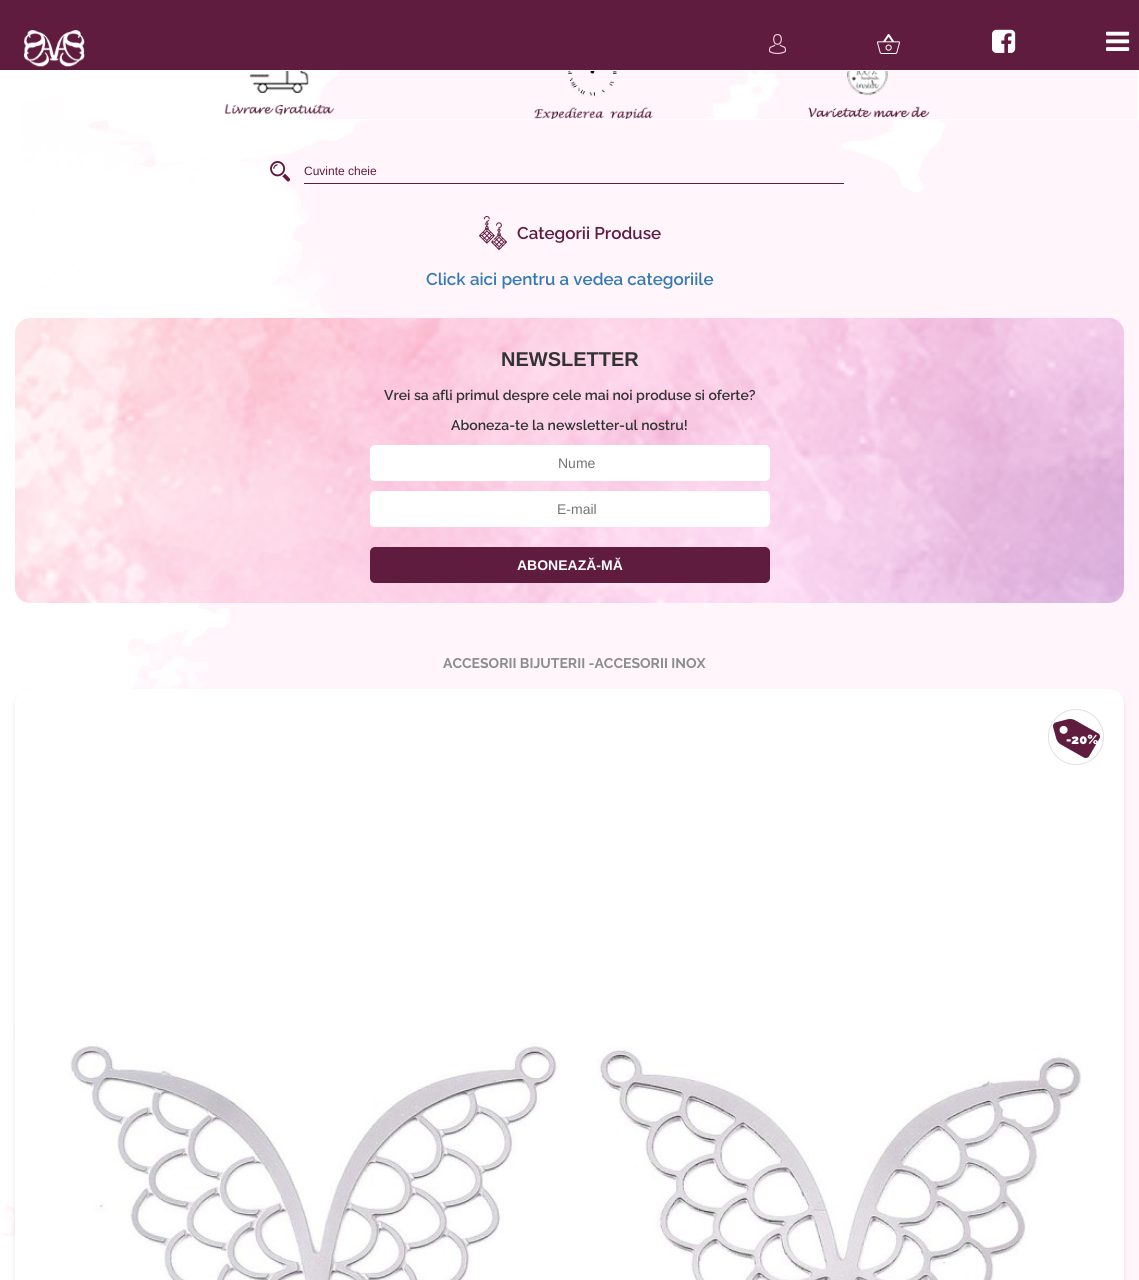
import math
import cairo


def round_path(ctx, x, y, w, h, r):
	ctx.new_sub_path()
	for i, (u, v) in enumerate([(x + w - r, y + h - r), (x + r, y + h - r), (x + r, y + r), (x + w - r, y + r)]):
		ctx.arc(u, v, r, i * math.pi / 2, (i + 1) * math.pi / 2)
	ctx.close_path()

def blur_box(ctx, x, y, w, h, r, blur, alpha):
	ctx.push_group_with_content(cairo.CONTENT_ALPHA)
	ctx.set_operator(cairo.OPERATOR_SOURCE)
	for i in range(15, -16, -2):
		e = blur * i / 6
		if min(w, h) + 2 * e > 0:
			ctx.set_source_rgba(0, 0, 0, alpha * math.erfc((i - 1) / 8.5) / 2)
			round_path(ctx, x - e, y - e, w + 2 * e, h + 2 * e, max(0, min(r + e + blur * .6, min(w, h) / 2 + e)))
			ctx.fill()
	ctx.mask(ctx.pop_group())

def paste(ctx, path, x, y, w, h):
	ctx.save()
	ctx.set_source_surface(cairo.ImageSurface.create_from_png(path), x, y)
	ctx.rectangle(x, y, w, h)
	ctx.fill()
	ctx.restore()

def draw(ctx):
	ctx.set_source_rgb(1, 1, 1)
	ctx.paint()
	paste(ctx, 'media/1.png', 1, 71, 1138, 1209)
	ctx.set_source_rgb(0.376, 0.11, 0.247)
	ctx.rectangle(0, 0, 1139, 70)
	ctx.fill()
	paste(ctx, 'media/2.png', 23, 30, 62, 37)
	paste(ctx, 'media/3.png', 769, 34, 17, 20)
	paste(ctx, 'media/4.png', 877, 34, 23, 20)
	paste(ctx, 'media/5.png', 992, 29, 24, 24)
	paste(ctx, 'media/6.png', 1106, 31, 24, 20)
	ctx.rectangle(0.5, 70.5, 1138, 49)
	ctx.set_source_rgb(1, 1, 1)
	ctx.set_line_width(1)
	ctx.stroke()
	paste(ctx, 'media/7.png', 65, 71, 879, 48)
	paste(ctx, 'media/8.png', 270, 161, 21, 21)
	ctx.set_source_rgb(0.376, 0.11, 0.247)
	ctx.rectangle(304, 183, 540, 1)
	ctx.fill()
	ctx.select_font_face('Liberation Sans')
	ctx.set_font_size(12)
	ctx.move_to(304, 175)
	ctx.show_text('Cuvinte cheie')
	paste(ctx, 'media/9.png', 479, 216, 28, 34)
	ctx.select_font_face('Raleway SemiBold')
	ctx.set_font_size(17)
	ctx.move_to(517, 239)
	ctx.show_text('Categorii Produse')
	ctx.set_source_rgb(0.2, 0.478, 0.718)
	ctx.move_to(426, 285)
	ctx.show_text('Click aici pentru a vedea categoriile')
	paste(ctx, 'media/10.png', 15, 318, 1109, 285)
	ctx.select_font_face('Liberation Sans', cairo.FONT_SLANT_NORMAL, cairo.FONT_WEIGHT_BOLD)
	ctx.set_font_size(20)
	ctx.set_source_rgb(0.2, 0.2, 0.2)
	ctx.move_to(501, 366)
	ctx.show_text('NEWSLETTER')
	ctx.select_font_face('Raleway SemiBold')
	ctx.set_font_size(14)
	ctx.move_to(384, 400)
	ctx.show_text('Vrei sa afli primul despre cele mai noi produse si oferte?')
	ctx.move_to(451, 430)
	ctx.show_text('Aboneza-te la newsletter-ul nostru!')
	ctx.set_source_rgb(1, 1, 1)
	round_path(ctx, 370, 445, 400, 36, 5)
	ctx.fill()
	ctx.select_font_face('Liberation Sans')
	ctx.set_source_rgb(0.459, 0.459, 0.459)
	ctx.move_to(558, 468)
	ctx.show_text('Nume')
	ctx.set_source_rgb(1, 1, 1)
	round_path(ctx, 370, 491, 400, 36, 5)
	ctx.fill()
	ctx.set_source_rgb(0.459, 0.459, 0.459)
	ctx.move_to(557, 514)
	ctx.show_text('E-mail')
	ctx.set_source_rgb(0.376, 0.11, 0.247)
	round_path(ctx, 370, 547, 400, 36, 5)
	ctx.fill()
	ctx.select_font_face('Liberation Sans', cairo.FONT_SLANT_NORMAL, cairo.FONT_WEIGHT_BOLD)
	ctx.set_source_rgb(1, 1, 1)
	ctx.move_to(517, 570)
	ctx.show_text('ABONEAZĂ-MĂ')
	ctx.select_font_face('Raleway', cairo.FONT_SLANT_NORMAL, cairo.FONT_WEIGHT_BOLD)
	ctx.set_source_rgb(0.553, 0.553, 0.553)
	ctx.move_to(443, 668)
	ctx.show_text('ACCESORII BIJUTERII -ACCESORII INOX')
	ctx.set_source_rgb(0, 0, 0)
	blur_box(ctx, 15, 692, 1109, 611, 15, 2.5, 0.1)
	ctx.set_source_rgb(1, 1, 1)
	round_path(ctx, 15, 689, 1109, 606, 15)
	ctx.fill()
	paste(ctx, 'media/11.png', 1048, 709, 56, 56)
	ctx.select_font_face('Raleway Black')
	ctx.set_font_size(13)
	ctx.move_to(1066, 744)
	ctx.show_text('-20%')
	paste(ctx, 'media/12.png', 69, 1042, 1013, 238)


surface = cairo.ImageSurface(cairo.FORMAT_RGB24, 1139, 1280)
ctx = cairo.Context(surface)
options = cairo.FontOptions()
options.set_hint_metrics(cairo.HINT_METRICS_OFF)
options.set_hint_style(cairo.HINT_STYLE_NONE)
ctx.set_font_options(options)
ctx.set_miter_limit(4)
draw(ctx)
surface.write_to_png('image.png')
